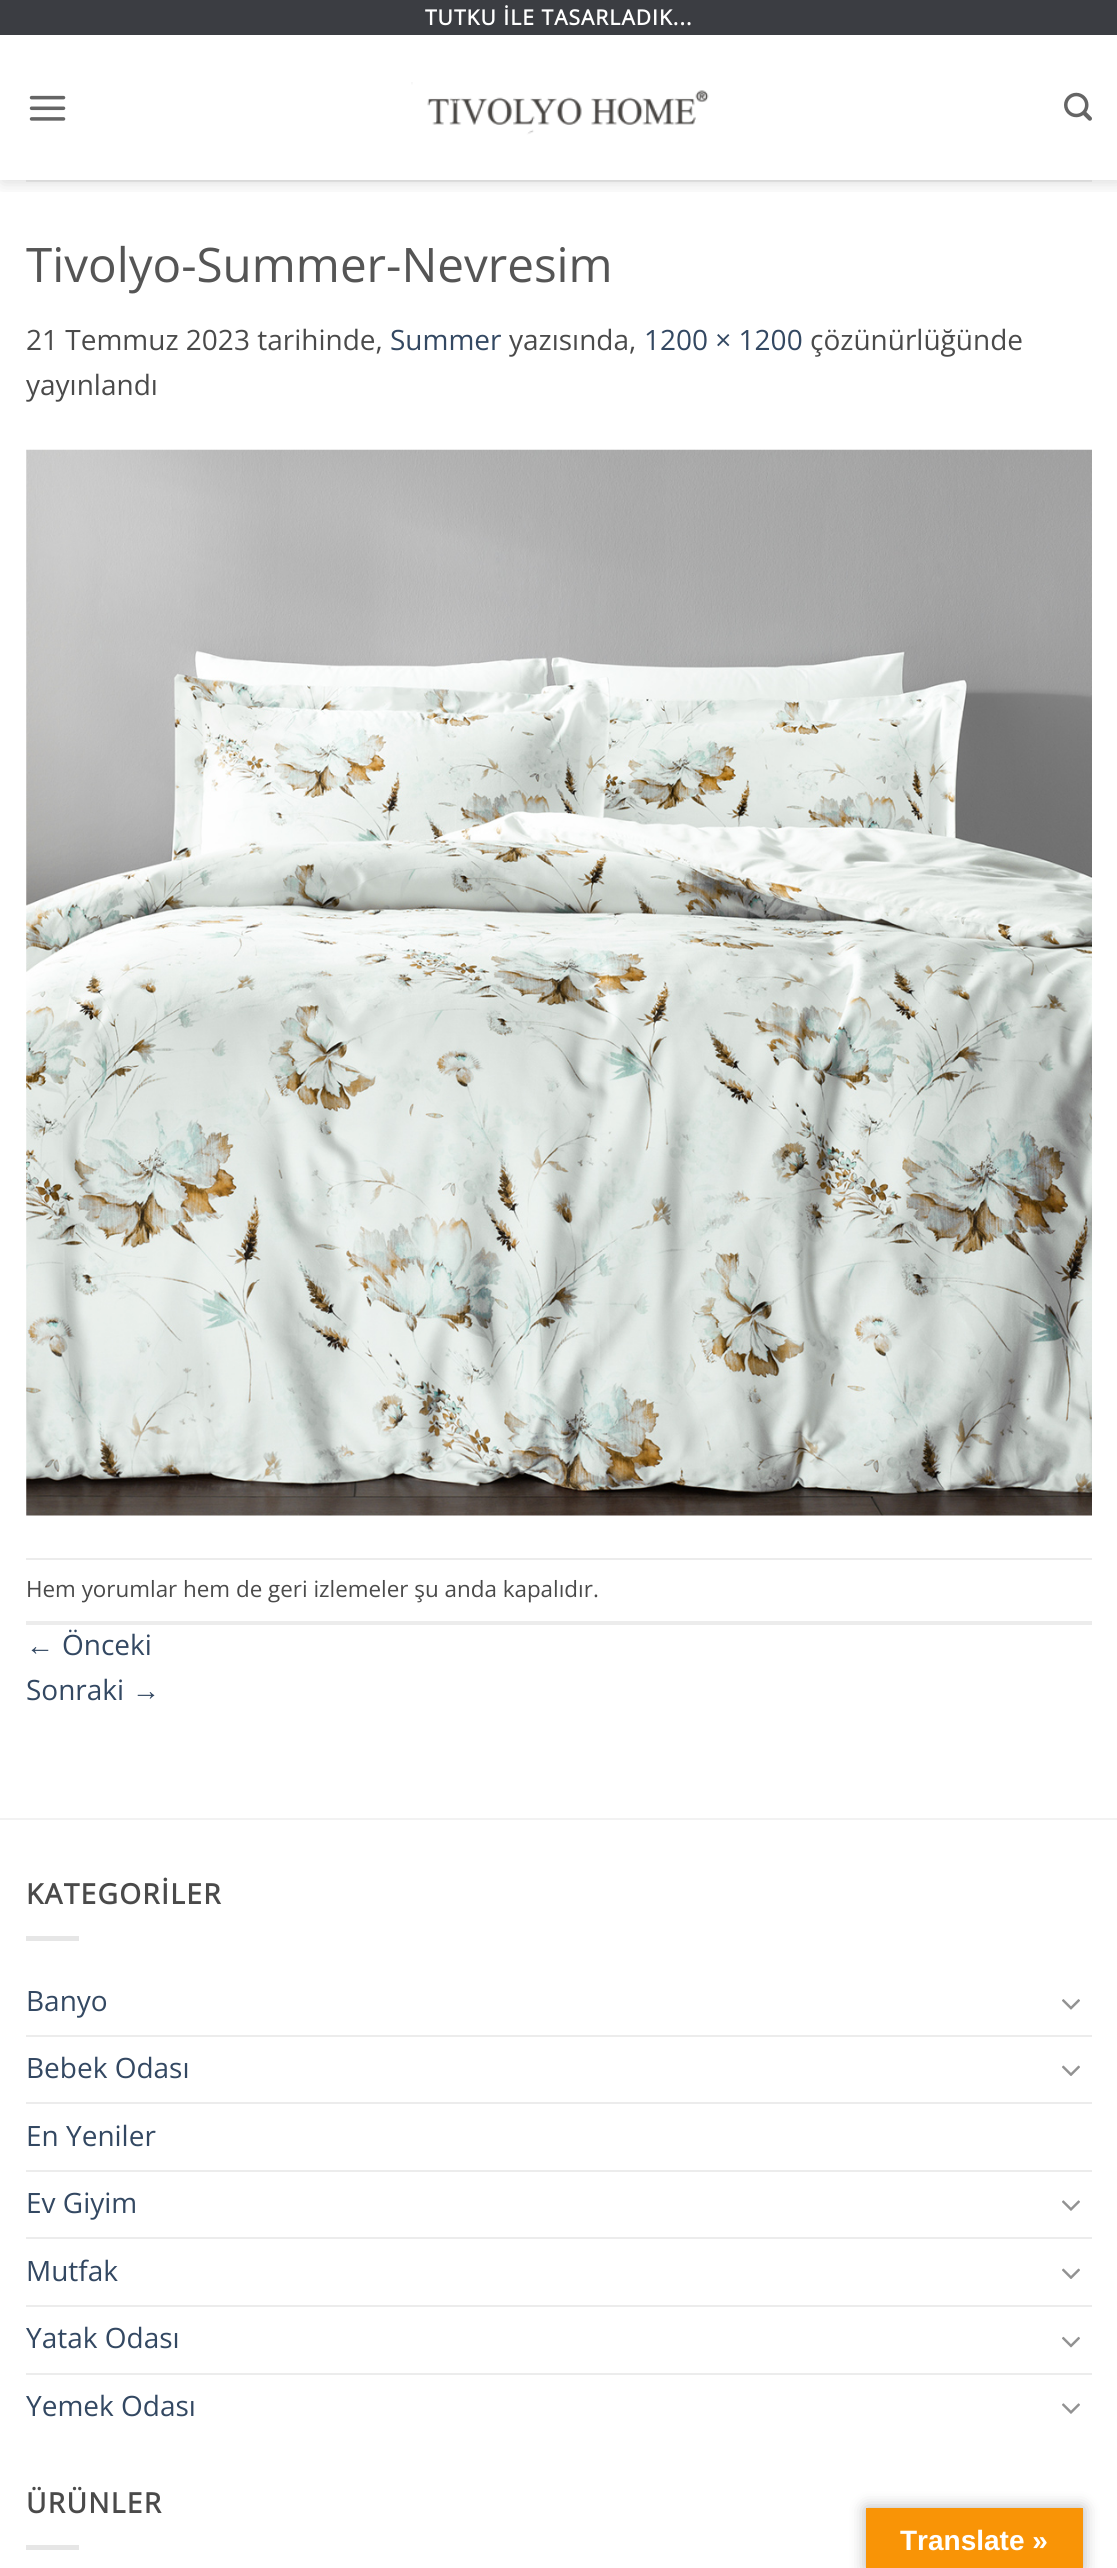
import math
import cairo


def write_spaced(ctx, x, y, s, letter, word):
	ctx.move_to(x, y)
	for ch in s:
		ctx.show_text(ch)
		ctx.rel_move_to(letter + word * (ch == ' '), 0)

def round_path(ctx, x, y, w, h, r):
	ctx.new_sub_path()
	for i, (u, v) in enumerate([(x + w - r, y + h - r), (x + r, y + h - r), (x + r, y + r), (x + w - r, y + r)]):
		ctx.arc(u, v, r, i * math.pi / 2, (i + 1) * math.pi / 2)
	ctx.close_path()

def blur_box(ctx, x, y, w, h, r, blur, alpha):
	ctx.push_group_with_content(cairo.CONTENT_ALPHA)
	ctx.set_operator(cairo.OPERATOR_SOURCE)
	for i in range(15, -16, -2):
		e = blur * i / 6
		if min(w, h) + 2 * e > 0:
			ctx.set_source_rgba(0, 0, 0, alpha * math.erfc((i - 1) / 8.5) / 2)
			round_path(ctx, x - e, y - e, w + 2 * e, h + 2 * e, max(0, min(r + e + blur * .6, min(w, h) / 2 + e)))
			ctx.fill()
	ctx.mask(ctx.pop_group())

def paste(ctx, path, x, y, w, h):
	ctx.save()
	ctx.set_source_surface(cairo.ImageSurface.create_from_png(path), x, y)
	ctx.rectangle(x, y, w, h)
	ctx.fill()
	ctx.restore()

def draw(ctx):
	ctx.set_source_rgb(1, 1, 1)
	ctx.paint()
	ctx.save()
	ctx.rectangle(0, 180, 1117, 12)
	ctx.clip()
	ctx.set_source_rgb(0, 0, 0)
	blur_box(ctx, 2, 2, 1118, 180, 0, 9, 0.15)
	ctx.restore()
	ctx.set_source_rgb(0.231, 0.239, 0.259)
	ctx.rectangle(0, 0, 1117, 35)
	ctx.fill()
	ctx.select_font_face('Open Sans', cairo.FONT_SLANT_NORMAL, cairo.FONT_WEIGHT_BOLD)
	ctx.set_font_size(21)
	ctx.set_source_rgb(1, 1, 1)
	write_spaced(ctx, 425, 25, 'TUTKU İLE TASARLADIK...', 1.05, 0)
	paste(ctx, 'media/1.png', 29, 95, 37, 26)
	paste(ctx, 'media/2.png', 411, 82, 298, 53)
	paste(ctx, 'media/3.png', 1064, 92, 28, 29)
	ctx.set_source_rgba(0.29, 0.29, 0.29, 0.1)
	ctx.rectangle(26, 180, 1066, 2)
	ctx.fill()
	ctx.select_font_face('Open Sans')
	ctx.set_font_size(47.6)
	ctx.set_source_rgb(0.333, 0.333, 0.333)
	ctx.move_to(26, 282)
	ctx.show_text('Tivolyo-Summer-Nevresim')
	ctx.set_font_size(28)
	ctx.set_source_rgb(0.29, 0.29, 0.29)
	ctx.move_to(26, 350)
	ctx.show_text('21 Temmuz 2023 tarihinde,')
	ctx.set_source_rgb(0.2, 0.282, 0.384)
	ctx.move_to(390, 350)
	ctx.show_text('Summer')
	ctx.set_source_rgb(0.29, 0.29, 0.29)
	ctx.move_to(509, 350)
	ctx.show_text('yazısında,')
	ctx.set_source_rgb(0.2, 0.282, 0.384)
	ctx.move_to(644, 350)
	ctx.show_text('1200 × 1200')
	ctx.set_source_rgb(0.29, 0.29, 0.29)
	ctx.move_to(810, 350)
	ctx.show_text('çözünürlüğünde')
	ctx.move_to(26, 395)
	ctx.show_text('yayınlandı')
	paste(ctx, 'media/4.png', 26, 449, 1066, 1067)
	ctx.set_source_rgb(0.925, 0.925, 0.925)
	ctx.rectangle(26, 1558, 1066, 2)
	ctx.fill()
	ctx.rectangle(26, 1621, 1066, 4)
	ctx.fill()
	ctx.set_font_size(22.4)
	ctx.set_source_rgb(0.29, 0.29, 0.29)
	ctx.move_to(26, 1597)
	ctx.show_text('Hem yorumlar hem de geri izlemeler şu anda kapalıdır.')
	ctx.select_font_face('Liberation Sans')
	ctx.set_font_size(28)
	ctx.set_source_rgb(0.2, 0.282, 0.384)
	ctx.move_to(26, 1655)
	ctx.show_text('←')
	ctx.select_font_face('Open Sans')
	ctx.move_to(62, 1655)
	ctx.show_text('Önceki')
	ctx.move_to(26, 1700)
	ctx.show_text('Sonraki')
	ctx.select_font_face('Liberation Sans')
	ctx.move_to(132, 1700)
	ctx.show_text('→')
	ctx.set_source_rgb(0.949, 0.949, 0.949)
	ctx.rectangle(0, 1818, 1117, 2)
	ctx.fill()
	ctx.select_font_face('Open Sans', cairo.FONT_SLANT_NORMAL, cairo.FONT_WEIGHT_BOLD)
	ctx.set_source_rgb(0.29, 0.29, 0.29)
	write_spaced(ctx, 26, 1904, 'KATEGORİLER', 1.4, 0)
	ctx.set_source_rgb(0.902, 0.902, 0.902)
	ctx.rectangle(26, 1936, 53, 5)
	ctx.fill()
	ctx.select_font_face('Open Sans')
	ctx.set_source_rgb(0.2, 0.282, 0.384)
	ctx.move_to(26, 2011)
	ctx.show_text('Banyo')
	paste(ctx, 'media/5.png', 1062, 1999, 18, 11)
	ctx.set_source_rgb(0.925, 0.925, 0.925)
	ctx.rectangle(26, 2035, 1066, 2)
	ctx.fill()
	ctx.set_source_rgb(0.2, 0.282, 0.384)
	ctx.move_to(26, 2078)
	ctx.show_text('Bebek Odası')
	paste(ctx, 'media/6.png', 1062, 2065, 18, 11)
	ctx.set_source_rgb(0.925, 0.925, 0.925)
	ctx.rectangle(26, 2102, 1066, 2)
	ctx.fill()
	ctx.set_source_rgb(0.2, 0.282, 0.384)
	ctx.move_to(26, 2146)
	ctx.show_text('En Yeniler')
	ctx.set_source_rgb(0.925, 0.925, 0.925)
	ctx.rectangle(26, 2170, 1066, 2)
	ctx.fill()
	ctx.set_source_rgb(0.2, 0.282, 0.384)
	ctx.move_to(26, 2213)
	ctx.show_text('Ev Giyim')
	paste(ctx, 'media/7.png', 1062, 2200, 18, 11)
	ctx.set_source_rgb(0.925, 0.925, 0.925)
	ctx.rectangle(26, 2237, 1066, 2)
	ctx.fill()
	ctx.set_source_rgb(0.2, 0.282, 0.384)
	ctx.move_to(26, 2281)
	ctx.show_text('Mutfak')
	paste(ctx, 'media/6.png', 1062, 2268, 18, 11)
	ctx.set_source_rgb(0.925, 0.925, 0.925)
	ctx.rectangle(26, 2305, 1066, 2)
	ctx.fill()
	ctx.set_source_rgb(0.2, 0.282, 0.384)
	ctx.move_to(26, 2348)
	ctx.show_text('Yatak Odası')
	paste(ctx, 'media/8.png', 1062, 2336, 18, 12)
	ctx.set_source_rgb(0.925, 0.925, 0.925)
	ctx.rectangle(26, 2373, 1066, 2)
	ctx.fill()
	ctx.set_source_rgb(0.2, 0.282, 0.384)
	ctx.move_to(26, 2416)
	ctx.show_text('Yemek Odası')
	paste(ctx, 'media/7.png', 1062, 2403, 18, 11)
	ctx.select_font_face('Open Sans', cairo.FONT_SLANT_NORMAL, cairo.FONT_WEIGHT_BOLD)
	ctx.set_source_rgb(0.29, 0.29, 0.29)
	write_spaced(ctx, 26, 2513, 'ÜRÜNLER', 1.4, 0)
	ctx.set_source_rgb(0.902, 0.902, 0.902)
	ctx.rectangle(26, 2545, 53, 5)
	ctx.fill()
	ctx.set_source_rgb(0, 0, 0)
	blur_box(ctx, 866, 2508, 217, 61, 0, 8, 0.3)
	ctx.set_source_rgb(0.973, 0.58, 0.024)
	ctx.rectangle(866, 2508, 217, 60)
	ctx.fill()
	ctx.select_font_face('Liberation Sans', cairo.FONT_SLANT_NORMAL, cairo.FONT_WEIGHT_BOLD)
	ctx.set_source_rgb(1, 1, 1)
	ctx.move_to(900, 2550)
	ctx.show_text('Translate »')


surface = cairo.ImageSurface(cairo.FORMAT_RGB24, 1117, 2568)
ctx = cairo.Context(surface)
options = cairo.FontOptions()
options.set_hint_metrics(cairo.HINT_METRICS_OFF)
options.set_hint_style(cairo.HINT_STYLE_NONE)
ctx.set_font_options(options)
ctx.set_miter_limit(4)
draw(ctx)
surface.write_to_png('image.png')
